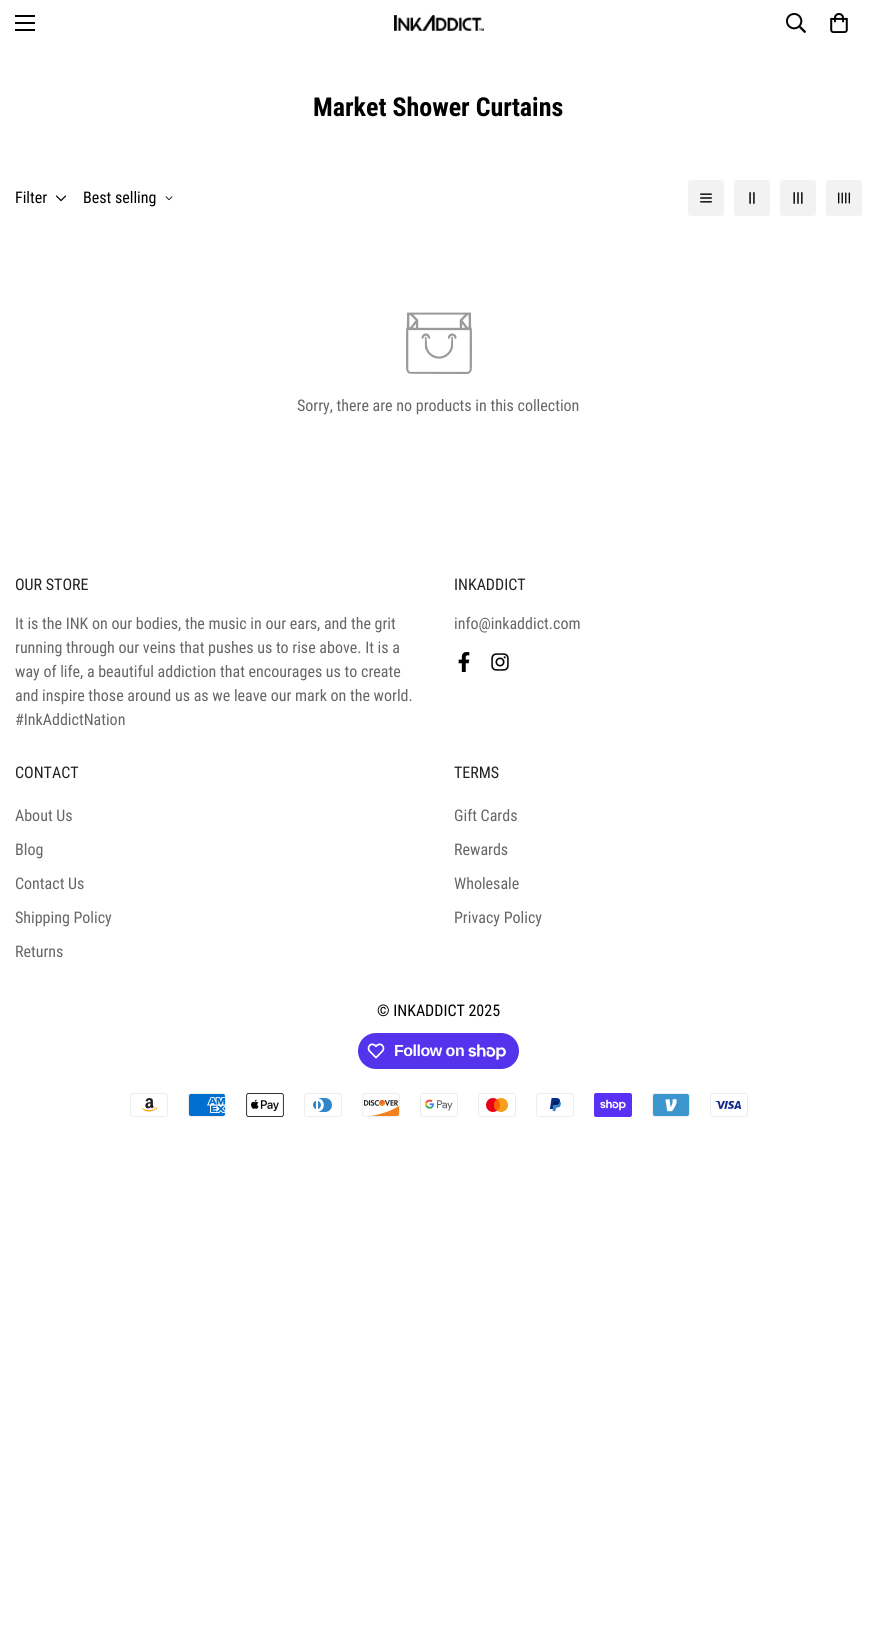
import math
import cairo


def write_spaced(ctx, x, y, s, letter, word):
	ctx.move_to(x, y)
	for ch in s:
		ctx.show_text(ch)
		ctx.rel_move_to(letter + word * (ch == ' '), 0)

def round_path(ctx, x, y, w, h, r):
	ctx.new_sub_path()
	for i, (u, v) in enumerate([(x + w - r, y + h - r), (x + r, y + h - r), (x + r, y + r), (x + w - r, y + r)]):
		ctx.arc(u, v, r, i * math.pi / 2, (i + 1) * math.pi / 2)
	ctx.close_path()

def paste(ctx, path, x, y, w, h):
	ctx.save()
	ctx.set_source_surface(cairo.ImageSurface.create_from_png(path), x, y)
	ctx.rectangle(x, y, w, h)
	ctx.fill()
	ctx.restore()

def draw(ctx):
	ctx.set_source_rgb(1, 1, 1)
	ctx.paint()
	ctx.set_source_rgb(0, 0, 0)
	ctx.rectangle(15, 22, 20, 2)
	ctx.rectangle(15, 15, 20, 2)
	ctx.rectangle(15, 29, 20, 2)
	ctx.fill()
	paste(ctx, 'media/1.png', 394, 15, 90, 16)
	paste(ctx, 'media/2.png', 786, 13, 20, 20)
	paste(ctx, 'media/3.png', 830, 13, 18, 20)
	ctx.select_font_face('Roboto Condensed', cairo.FONT_SLANT_NORMAL, cairo.FONT_WEIGHT_BOLD)
	ctx.set_font_size(26)
	ctx.move_to(313, 116)
	ctx.show_text('Market Shower Curtains')
	ctx.select_font_face('Roboto Condensed')
	ctx.set_font_size(16)
	ctx.move_to(15, 203)
	ctx.show_text('Filter')
	paste(ctx, 'media/4.png', 55, 195, 12, 7)
	ctx.move_to(83, 203)
	ctx.show_text('Best selling')
	paste(ctx, 'media/5.png', 165, 196, 8, 5)
	ctx.set_source_rgb(0.949, 0.949, 0.949)
	round_path(ctx, 688, 180, 36, 36, 3)
	ctx.fill()
	paste(ctx, 'media/6.png', 700, 193, 12, 10)
	round_path(ctx, 734, 180, 36, 36, 3)
	ctx.fill()
	paste(ctx, 'media/7.png', 749, 192, 6, 12)
	round_path(ctx, 780, 180, 36, 36, 3)
	ctx.fill()
	paste(ctx, 'media/8.png', 793, 192, 10, 12)
	round_path(ctx, 826, 180, 36, 36, 3)
	ctx.fill()
	paste(ctx, 'media/9.png', 838, 192, 12, 12)
	paste(ctx, 'media/10.png', 406, 312, 66, 62)
	ctx.set_source_rgb(0.4, 0.4, 0.4)
	ctx.move_to(297, 411)
	ctx.show_text('Sorry, there are no products in this collection')
	ctx.set_source_rgb(0.133, 0.133, 0.133)
	ctx.move_to(15, 590)
	ctx.show_text('OUR STORE')
	ctx.set_source_rgb(0.4, 0.4, 0.4)
	for x, y, s in [
		(15, 629, 'It is the INK on our bodies, the music in our ears, and the grit'),
		(15, 653, 'running through our veins that pushes us to rise above. It is a'),
		(15, 677, 'way of life, a beautiful addiction that encourages us to create'),
		(15, 701, 'and inspire those around us as we leave our mark on the world.'),
		(15, 725, '#InkAddictNation'),
	]:
		ctx.move_to(x, y)
		ctx.show_text(s)
	ctx.set_source_rgb(0.133, 0.133, 0.133)
	ctx.move_to(454, 590)
	ctx.show_text('INKADDICT')
	ctx.set_source_rgb(0.4, 0.4, 0.4)
	ctx.move_to(454, 629)
	ctx.show_text('info@inkaddict.com')
	paste(ctx, 'media/11.png', 458, 652, 12, 20)
	paste(ctx, 'media/12.png', 491, 653, 18, 18)
	ctx.set_source_rgb(0.133, 0.133, 0.133)
	ctx.move_to(15, 778)
	ctx.show_text('CONTACT')
	ctx.set_source_rgb(0.4, 0.4, 0.4)
	for x, y, s in [
		(15, 821, 'About Us'),
		(15, 855, 'Blog'),
		(15, 889, 'Contact Us'),
		(15, 923, 'Shipping Policy'),
		(15, 957, 'Returns'),
	]:
		ctx.move_to(x, y)
		ctx.show_text(s)
	ctx.set_source_rgb(0.133, 0.133, 0.133)
	ctx.move_to(454, 778)
	ctx.show_text('TERMS')
	ctx.set_source_rgb(0.4, 0.4, 0.4)
	for x, y, s in [
		(454, 821, 'Gift Cards'),
		(454, 855, 'Rewards'),
		(454, 889, 'Wholesale'),
		(454, 923, 'Privacy Policy'),
	]:
		ctx.move_to(x, y)
		ctx.show_text(s)
	ctx.set_source_rgb(0, 0, 0)
	ctx.move_to(377, 1016)
	ctx.show_text('© INKADDICT 2025')
	ctx.set_source_rgb(0.329, 0.2, 0.922)
	round_path(ctx, 358, 1033, 161, 36, 18)
	ctx.fill()
	paste(ctx, 'media/13.png', 367, 1043, 18, 16)
	ctx.select_font_face('Liberation Sans', cairo.FONT_SLANT_NORMAL, cairo.FONT_WEIGHT_BOLD)
	ctx.set_source_rgb(1, 1, 1)
	write_spaced(ctx, 394, 1056, 'Follow on', -0.5, 0)
	paste(ctx, 'media/14.png', 468, 1044, 38, 16)
	paste(ctx, 'media/15.png', 130, 1093, 38, 24)
	paste(ctx, 'media/16.png', 188, 1093, 38, 24)
	paste(ctx, 'media/17.png', 246, 1093, 38, 24)
	paste(ctx, 'media/18.png', 304, 1093, 38, 24)
	paste(ctx, 'media/19.png', 362, 1093, 38, 24)
	paste(ctx, 'media/20.png', 420, 1093, 38, 24)
	paste(ctx, 'media/21.png', 478, 1093, 38, 24)
	paste(ctx, 'media/22.png', 536, 1093, 38, 24)
	paste(ctx, 'media/23.png', 594, 1093, 38, 24)
	paste(ctx, 'media/24.png', 652, 1093, 38, 24)
	paste(ctx, 'media/25.png', 710, 1093, 38, 24)


surface = cairo.ImageSurface(cairo.FORMAT_RGB24, 877, 1649)
ctx = cairo.Context(surface)
options = cairo.FontOptions()
options.set_hint_metrics(cairo.HINT_METRICS_OFF)
options.set_hint_style(cairo.HINT_STYLE_NONE)
ctx.set_font_options(options)
ctx.set_miter_limit(4)
draw(ctx)
surface.write_to_png('image.png')
